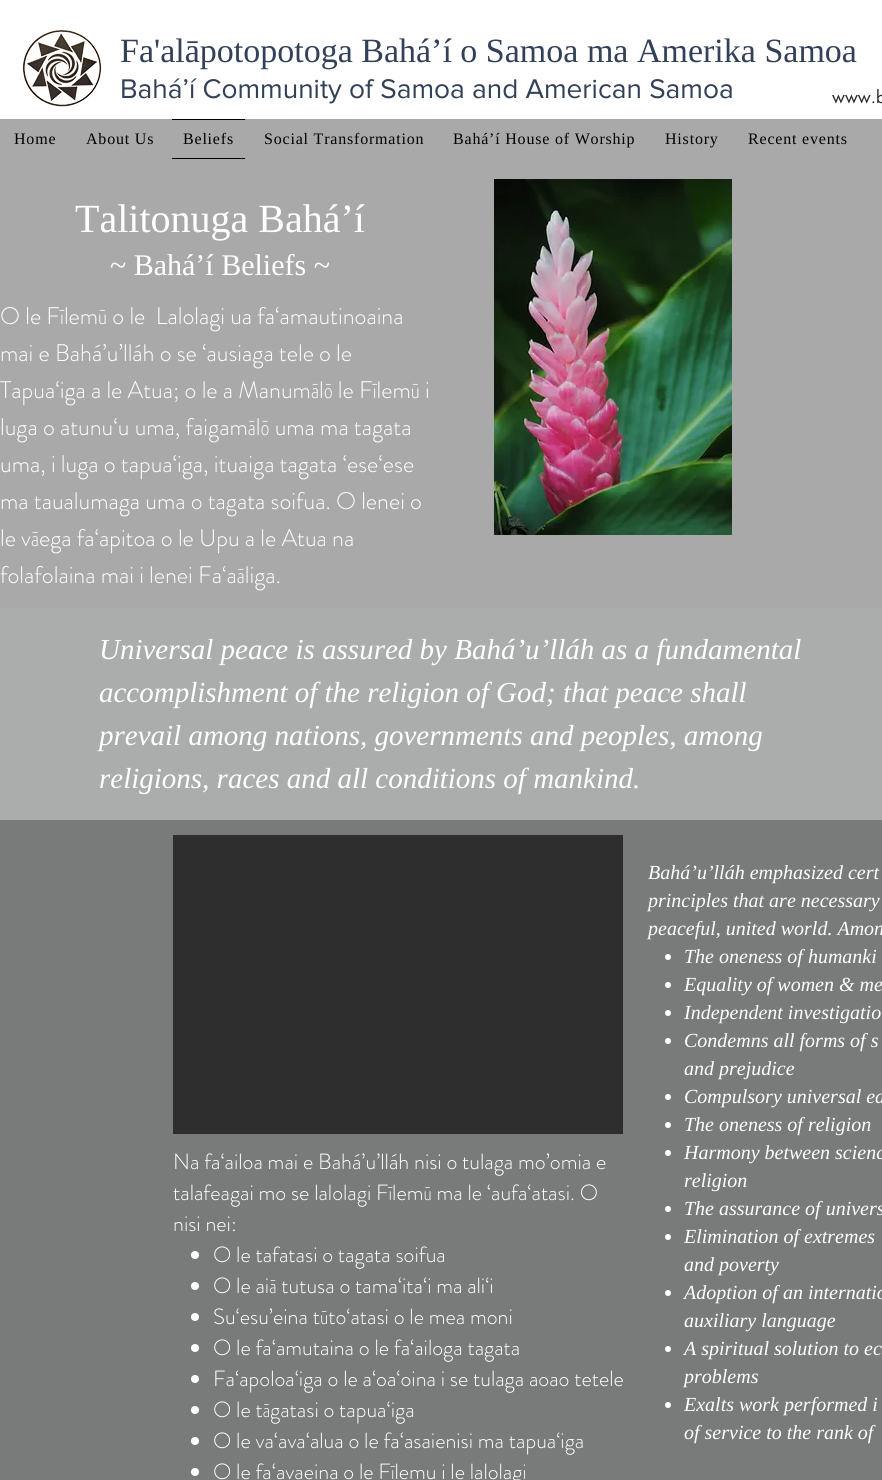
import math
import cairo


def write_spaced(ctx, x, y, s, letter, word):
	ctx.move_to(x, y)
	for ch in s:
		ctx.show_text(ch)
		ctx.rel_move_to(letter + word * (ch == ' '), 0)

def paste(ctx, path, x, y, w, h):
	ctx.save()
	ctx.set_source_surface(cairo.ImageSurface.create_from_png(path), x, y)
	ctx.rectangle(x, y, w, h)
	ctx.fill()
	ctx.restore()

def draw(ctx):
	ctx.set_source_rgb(1, 1, 1)
	ctx.paint()
	paste(ctx, 'media/1.png', 22, 30, 80, 77)
	ctx.select_font_face('Liberation Serif')
	ctx.set_font_size(34)
	ctx.set_source_rgb(0.196, 0.255, 0.345)
	ctx.move_to(120, 62)
	ctx.show_text('Fa\'alāpotopotoga Bahá’í o Samoa ma Amerika Samoa')
	ctx.select_font_face('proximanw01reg')
	ctx.set_font_size(28)
	ctx.move_to(120, 98)
	ctx.show_text('Bahá’í Community of Samoa and American Samoa')
	ctx.select_font_face('futura')
	ctx.set_font_size(17)
	ctx.set_source_rgb(0.157, 0.149, 0.149)
	ctx.move_to(832, 103)
	ctx.show_text('www.b')
	ctx.set_source_rgb(0.663, 0.663, 0.667)
	ctx.rectangle(0, 119, 882, 489)
	ctx.fill()
	ctx.select_font_face('Liberation Serif')
	ctx.set_font_size(16)
	ctx.set_source_rgb(0, 0, 0)
	write_spaced(ctx, 14, 144, 'Home', 0.8, 0)
	write_spaced(ctx, 86, 144, 'About Us', 0.8, 0)
	ctx.rectangle(172, 119, 73, 1)
	ctx.fill()
	ctx.rectangle(172, 158, 73, 1)
	ctx.fill()
	for x, y, s in [
		(183, 144, 'Beliefs'),
		(264, 144, 'Social Transformation'),
		(453, 144, 'Bahá’í House of Worship'),
		(665, 144, 'History'),
		(748, 144, 'Recent events'),
	]:
		write_spaced(ctx, x, y, s, 0.8, 0)
	ctx.set_font_size(40)
	ctx.set_source_rgb(1, 1, 1)
	ctx.move_to(75, 232)
	ctx.show_text('Talitonuga Bahá’í')
	ctx.set_font_size(30)
	ctx.move_to(110, 275)
	ctx.show_text('~ Bahá’í Beliefs ~')
	paste(ctx, 'media/2.png', 494, 179, 238, 356)
	ctx.select_font_face('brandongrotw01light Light')
	ctx.set_font_size(24)
	for x, y, s in [
		(0, 324, 'O le Fīlemū o le  Lalolagi ua fa‘amautinoaina'),
		(0, 361, 'mai e Bahá’u’lláh o se ‘ausiaga tele o le'),
		(0, 398, 'Tapua‘iga a le Atua; o le a Manumālō le Fīlemū i'),
		(0, 435, 'luga o atunu‘u uma, faigamālō uma ma tagata'),
		(0, 472, 'uma, i luga o tapua‘iga, ituaiga tagata ‘ese‘ese'),
		(0, 509, 'ma taualumaga uma o tagata soifua. O lenei o'),
		(0, 546, 'le vāega fa‘apitoa o le Upu a le Atua na'),
		(0, 583, 'folafolaina mai i lenei Fa‘aāliga.'),
	]:
		ctx.move_to(x, y)
		ctx.show_text(s)
	ctx.set_source_rgb(0.671, 0.675, 0.675)
	ctx.rectangle(0, 608, 882, 212)
	ctx.fill()
	ctx.select_font_face('Liberation Serif', cairo.FONT_SLANT_ITALIC)
	ctx.set_font_size(29)
	ctx.set_source_rgb(1, 1, 1)
	for x, y, s in [
		(99, 659, 'Universal peace is assured by Bahá’u’lláh as a fundamental'),
		(99, 702, 'accomplishment of the religion of God; that peace shall'),
		(99, 745, 'prevail among nations, governments and peoples, among'),
		(99, 788, 'religions, races and all conditions of mankind.'),
	]:
		ctx.move_to(x, y)
		ctx.show_text(s)
	ctx.set_source_rgb(0.475, 0.478, 0.478)
	ctx.rectangle(0, 820, 882, 660)
	ctx.fill()
	ctx.set_source_rgb(0.184, 0.18, 0.18)
	ctx.rectangle(173, 835, 450, 299)
	ctx.fill()
	ctx.set_font_size(20)
	ctx.set_source_rgb(1, 1, 1)
	for x, y, s in [
		(648, 879, 'Bahá’u’lláh emphasized cert'),
		(648, 907, 'principles that are necessary'),
		(648, 935, 'peaceful, united world. Amon'),
	]:
		ctx.move_to(x, y)
		ctx.show_text(s)
	ctx.new_path()
	ctx.arc(668, 957, 3, 0, 2 * math.pi)
	ctx.fill()
	ctx.move_to(684, 963)
	ctx.show_text('The oneness of humanki')
	ctx.new_path()
	ctx.arc(668, 985, 3, 0, 2 * math.pi)
	ctx.fill()
	ctx.move_to(684, 991)
	ctx.show_text('Equality of women & me')
	ctx.new_path()
	ctx.arc(668, 1013, 3, 0, 2 * math.pi)
	ctx.fill()
	ctx.move_to(684, 1019)
	ctx.show_text('Independent investigatio')
	ctx.new_path()
	ctx.arc(668, 1041, 3, 0, 2 * math.pi)
	ctx.fill()
	ctx.move_to(684, 1047)
	ctx.show_text('Condemns all forms of s')
	ctx.move_to(684, 1075)
	ctx.show_text('and prejudice')
	ctx.new_path()
	ctx.arc(668, 1097, 3, 0, 2 * math.pi)
	ctx.fill()
	ctx.move_to(684, 1103)
	ctx.show_text('Compulsory universal ed')
	ctx.new_path()
	ctx.arc(668, 1125, 3, 0, 2 * math.pi)
	ctx.fill()
	ctx.move_to(684, 1131)
	ctx.show_text('The oneness of religion')
	ctx.new_path()
	ctx.arc(668, 1153, 3, 0, 2 * math.pi)
	ctx.fill()
	ctx.move_to(684, 1159)
	ctx.show_text('Harmony between scienc')
	ctx.move_to(684, 1187)
	ctx.show_text('religion')
	ctx.new_path()
	ctx.arc(668, 1209, 3, 0, 2 * math.pi)
	ctx.fill()
	ctx.move_to(684, 1215)
	ctx.show_text('The assurance of univers')
	ctx.new_path()
	ctx.arc(668, 1237, 3, 0, 2 * math.pi)
	ctx.fill()
	ctx.move_to(684, 1243)
	ctx.show_text('Elimination of extremes')
	ctx.move_to(684, 1271)
	ctx.show_text('and poverty')
	ctx.new_path()
	ctx.arc(668, 1293, 3, 0, 2 * math.pi)
	ctx.fill()
	ctx.move_to(684, 1299)
	ctx.show_text('Adoption of an internatio')
	ctx.move_to(684, 1327)
	ctx.show_text('auxiliary language')
	ctx.new_path()
	ctx.arc(668, 1349, 3, 0, 2 * math.pi)
	ctx.fill()
	ctx.move_to(684, 1355)
	ctx.show_text('A spiritual solution to ec')
	ctx.move_to(684, 1383)
	ctx.show_text('problems')
	ctx.new_path()
	ctx.arc(668, 1405, 3, 0, 2 * math.pi)
	ctx.fill()
	ctx.move_to(684, 1411)
	ctx.show_text('Exalts work performed i')
	ctx.move_to(684, 1439)
	ctx.show_text('of service to the rank of')
	ctx.select_font_face('brandongrotw01light Light')
	ctx.set_font_size(22)
	for x, y, s in [
		(173, 1169, 'Na fa‘ailoa mai e Bahá’u’lláh nisi o tulaga mo’omia e'),
		(173, 1200, 'talafeagai mo se lalolagi Fīlemū ma le ‘aufa‘atasi. O'),
		(173, 1231, 'nisi nei:'),
	]:
		ctx.move_to(x, y)
		ctx.show_text(s)
	ctx.new_path()
	ctx.arc(195, 1255, 4, 0, 2 * math.pi)
	ctx.fill()
	ctx.move_to(213, 1262)
	ctx.show_text('O le tafatasi o tagata soifua')
	ctx.new_path()
	ctx.arc(195, 1286, 4, 0, 2 * math.pi)
	ctx.fill()
	ctx.move_to(213, 1293)
	ctx.show_text('O le aiā tutusa o tama‘ita‘i ma ali‘i')
	ctx.new_path()
	ctx.arc(195, 1317, 4, 0, 2 * math.pi)
	ctx.fill()
	ctx.move_to(213, 1324)
	ctx.show_text('Su‘esu’eina tūto‘atasi o le mea moni')
	ctx.new_path()
	ctx.arc(195, 1348, 4, 0, 2 * math.pi)
	ctx.fill()
	ctx.move_to(213, 1355)
	ctx.show_text('O le fa‘amutaina o le fa‘ailoga tagata')
	ctx.new_path()
	ctx.arc(195, 1379, 4, 0, 2 * math.pi)
	ctx.fill()
	ctx.move_to(213, 1386)
	ctx.show_text('Fa‘apoloa‘iga o le a‘oa‘oina i se tulaga aoao tetele')
	ctx.new_path()
	ctx.arc(195, 1410, 4, 0, 2 * math.pi)
	ctx.fill()
	ctx.move_to(213, 1417)
	ctx.show_text('O le tāgatasi o tapua‘iga')
	ctx.new_path()
	ctx.arc(195, 1441, 4, 0, 2 * math.pi)
	ctx.fill()
	ctx.move_to(213, 1448)
	ctx.show_text('O le va‘ava‘alua o le fa‘asaienisi ma tapua‘iga')
	ctx.new_path()
	ctx.arc(195, 1472, 4, 0, 2 * math.pi)
	ctx.fill()
	ctx.move_to(213, 1479)
	ctx.show_text('O le fa‘avaeina o le Fīlemu i le lalolagi')


surface = cairo.ImageSurface(cairo.FORMAT_RGB24, 882, 1480)
ctx = cairo.Context(surface)
options = cairo.FontOptions()
options.set_hint_metrics(cairo.HINT_METRICS_OFF)
options.set_hint_style(cairo.HINT_STYLE_NONE)
ctx.set_font_options(options)
ctx.set_miter_limit(4)
draw(ctx)
surface.write_to_png('image.png')
